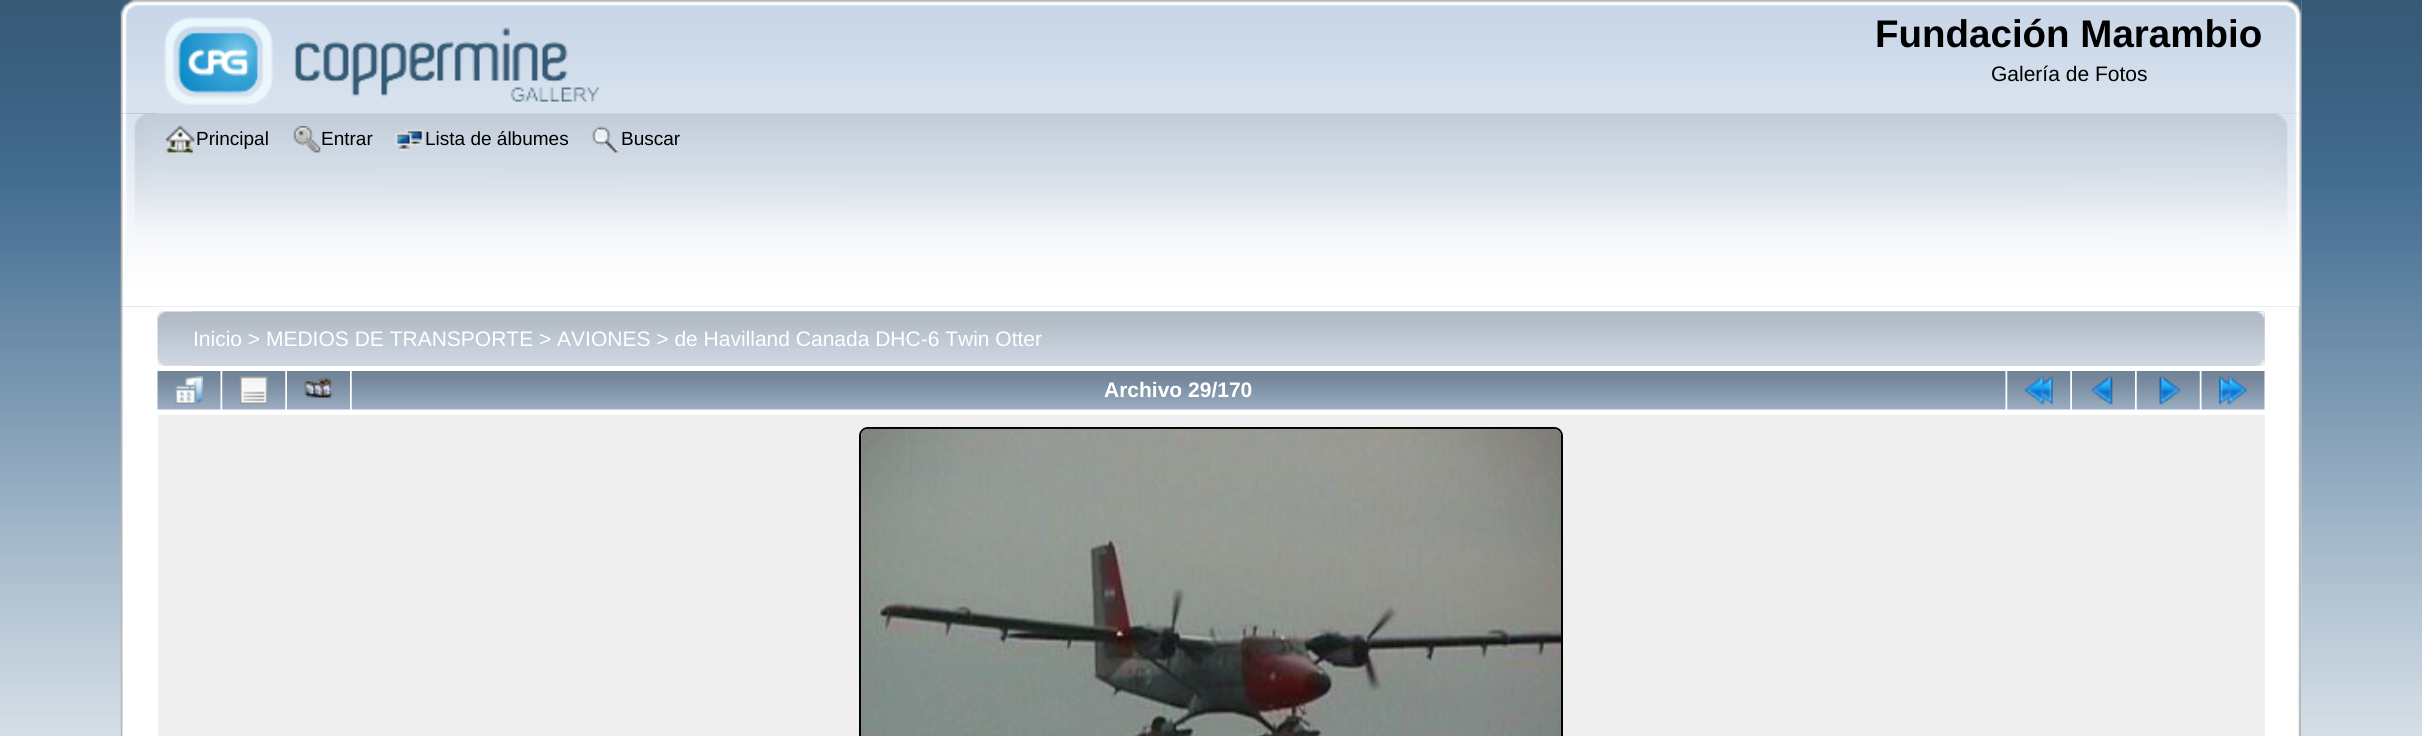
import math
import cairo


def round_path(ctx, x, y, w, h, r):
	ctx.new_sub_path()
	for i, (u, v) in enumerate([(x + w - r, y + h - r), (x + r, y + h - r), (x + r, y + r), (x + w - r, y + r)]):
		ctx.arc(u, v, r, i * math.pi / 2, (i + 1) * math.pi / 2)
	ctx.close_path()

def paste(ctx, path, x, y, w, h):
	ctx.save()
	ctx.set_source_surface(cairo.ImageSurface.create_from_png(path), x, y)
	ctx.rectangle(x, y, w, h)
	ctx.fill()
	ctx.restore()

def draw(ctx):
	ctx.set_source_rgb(1, 1, 1)
	ctx.paint()
	paste(ctx, 'media/1.png', 0, 0, 2422, 736)
	paste(ctx, 'media/2.png', 120, 0, 2182, 114)
	paste(ctx, 'media/3.png', 156, 0, 2146, 114)
	paste(ctx, 'media/4.png', 164, 17, 435, 88)
	ctx.select_font_face('Liberation Sans', cairo.FONT_SLANT_NORMAL, cairo.FONT_WEIGHT_BOLD)
	ctx.set_font_size(38.5)
	ctx.set_source_rgb(0, 0, 0)
	ctx.move_to(1875, 47)
	ctx.show_text('Fundación Marambio')
	ctx.select_font_face('Liberation Sans')
	ctx.set_font_size(21)
	ctx.move_to(1991, 81)
	ctx.show_text('Galería de Fotos')
	paste(ctx, 'media/5.png', 120, 113, 2182, 194)
	paste(ctx, 'media/6.png', 155, 113, 2147, 194)
	paste(ctx, 'media/7.png', 166, 126, 29, 28)
	ctx.set_font_size(19)
	ctx.move_to(196, 145)
	ctx.show_text('Principal')
	paste(ctx, 'media/8.png', 293, 126, 28, 27)
	ctx.move_to(321, 145)
	ctx.show_text('Entrar')
	paste(ctx, 'media/9.png', 395, 129, 29, 22)
	ctx.move_to(425, 145)
	ctx.show_text('Lista de álbumes')
	paste(ctx, 'media/10.png', 591, 126, 28, 27)
	ctx.move_to(621, 145)
	ctx.show_text('Buscar')
	paste(ctx, 'media/11.png', 120, 306, 2182, 430)
	paste(ctx, 'media/12.png', 2298, 306, 4, 430)
	paste(ctx, 'media/13.png', 157, 311, 2108, 55)
	paste(ctx, 'media/14.png', 192, 311, 2073, 55)
	ctx.set_font_size(21)
	ctx.set_source_rgb(1, 1, 1)
	ctx.move_to(193, 346)
	ctx.show_text('Inicio > MEDIOS DE TRANSPORTE > AVIONES > de Havilland Canada DHC-6 Twin Otter')
	paste(ctx, 'media/15.png', 157, 371, 64, 39)
	paste(ctx, 'media/16.png', 175, 376, 28, 29)
	paste(ctx, 'media/17.png', 222, 371, 64, 39)
	paste(ctx, 'media/18.png', 239, 376, 29, 29)
	paste(ctx, 'media/19.png', 287, 371, 63, 39)
	paste(ctx, 'media/20.png', 304, 377, 29, 22)
	paste(ctx, 'media/21.png', 351, 371, 1655, 39)
	ctx.select_font_face('Liberation Sans', cairo.FONT_SLANT_NORMAL, cairo.FONT_WEIGHT_BOLD)
	ctx.move_to(1104, 397)
	ctx.show_text('Archivo 29/170')
	paste(ctx, 'media/17.png', 2007, 371, 64, 39)
	paste(ctx, 'media/22.png', 2024, 376, 29, 29)
	paste(ctx, 'media/19.png', 2072, 371, 63, 39)
	paste(ctx, 'media/23.png', 2091, 376, 22, 29)
	paste(ctx, 'media/24.png', 2136, 371, 64, 39)
	paste(ctx, 'media/25.png', 2159, 376, 22, 29)
	paste(ctx, 'media/15.png', 2201, 371, 64, 39)
	paste(ctx, 'media/26.png', 2219, 376, 28, 29)
	ctx.set_source_rgb(0.937, 0.937, 0.937)
	ctx.rectangle(158, 415, 2107, 321)
	ctx.fill()
	round_path(ctx, 860, 428, 702, 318, 8)
	ctx.set_source_rgb(0, 0, 0)
	ctx.stroke()
	paste(ctx, 'media/27.png', 861, 428, 700, 308)


surface = cairo.ImageSurface(cairo.FORMAT_RGB24, 2422, 736)
ctx = cairo.Context(surface)
options = cairo.FontOptions()
options.set_hint_metrics(cairo.HINT_METRICS_OFF)
options.set_hint_style(cairo.HINT_STYLE_NONE)
ctx.set_font_options(options)
ctx.set_miter_limit(4)
draw(ctx)
surface.write_to_png('image.png')
